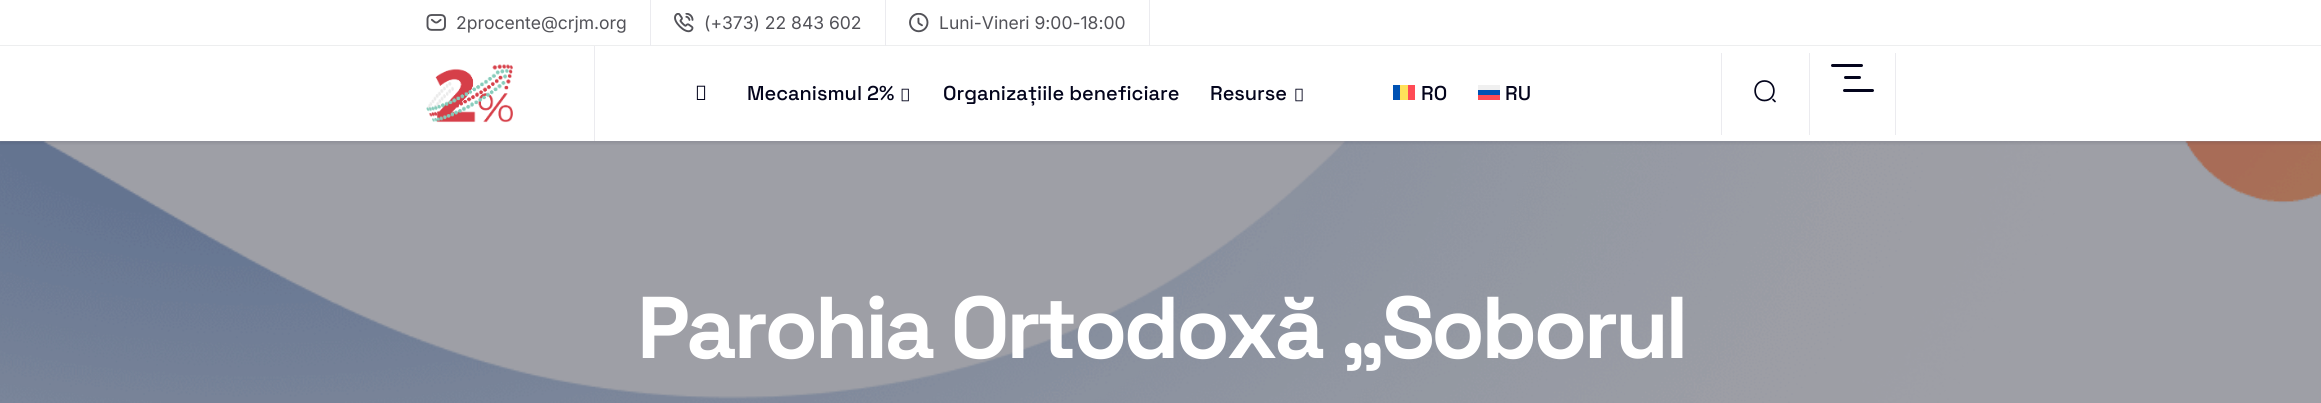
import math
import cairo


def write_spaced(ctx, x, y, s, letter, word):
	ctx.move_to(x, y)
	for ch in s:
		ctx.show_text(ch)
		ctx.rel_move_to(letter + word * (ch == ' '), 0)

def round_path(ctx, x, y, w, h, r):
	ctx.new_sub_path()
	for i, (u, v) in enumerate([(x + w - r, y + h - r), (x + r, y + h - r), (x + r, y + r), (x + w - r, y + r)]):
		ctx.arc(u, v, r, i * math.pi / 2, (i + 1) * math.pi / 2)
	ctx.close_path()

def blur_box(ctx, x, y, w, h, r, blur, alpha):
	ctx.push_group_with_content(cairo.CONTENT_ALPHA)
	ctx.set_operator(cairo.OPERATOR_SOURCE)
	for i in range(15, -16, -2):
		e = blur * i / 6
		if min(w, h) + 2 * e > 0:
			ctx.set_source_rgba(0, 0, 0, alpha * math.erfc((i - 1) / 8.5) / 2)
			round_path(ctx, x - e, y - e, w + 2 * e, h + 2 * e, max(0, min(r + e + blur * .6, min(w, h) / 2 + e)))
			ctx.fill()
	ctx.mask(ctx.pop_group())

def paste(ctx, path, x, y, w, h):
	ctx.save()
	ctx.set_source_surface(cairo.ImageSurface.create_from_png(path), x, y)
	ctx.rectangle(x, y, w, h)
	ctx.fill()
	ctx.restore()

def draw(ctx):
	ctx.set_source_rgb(1, 1, 1)
	ctx.paint()
	ctx.set_source_rgb(0.62, 0.624, 0.651)
	ctx.rectangle(0, 141, 2321, 262)
	ctx.fill()
	paste(ctx, 'media/8.png', 0, 141, 2321, 262)
	ctx.save()
	ctx.rectangle(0, 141, 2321, 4)
	ctx.clip()
	ctx.set_source_rgb(0.012, 0.016, 0.11)
	blur_box(ctx, 0, 1, 2321, 142, 0, 2, 0.12)
	ctx.restore()
	ctx.set_source_rgb(0.929, 0.933, 0.937)
	ctx.rectangle(0, 45, 2321, 1)
	ctx.fill()
	paste(ctx, 'media/1.png', 426, 14, 20, 17)
	ctx.select_font_face('Inter')
	ctx.set_font_size(17.5)
	ctx.set_source_rgb(0.322, 0.322, 0.345)
	ctx.move_to(456, 29)
	ctx.show_text('2procente@crjm.org')
	ctx.set_source_rgb(0.918, 0.918, 0.937)
	ctx.rectangle(650, 0, 1, 46)
	ctx.fill()
	paste(ctx, 'media/2.png', 674, 13, 20, 20)
	ctx.set_source_rgb(0.322, 0.322, 0.345)
	ctx.move_to(704, 29)
	ctx.show_text('(+373) 22 843 602')
	ctx.set_source_rgb(0.918, 0.918, 0.937)
	ctx.rectangle(885, 0, 1, 46)
	ctx.fill()
	paste(ctx, 'media/3.png', 909, 13, 20, 20)
	ctx.set_source_rgb(0.322, 0.322, 0.345)
	ctx.move_to(939, 29)
	ctx.show_text('Luni-Vineri 9:00-18:00')
	ctx.set_source_rgb(0.918, 0.918, 0.937)
	ctx.rectangle(1149, 0, 1, 46)
	ctx.fill()
	paste(ctx, 'media/4.png', 426, 64, 87, 59)
	ctx.rectangle(594, 46, 1, 95)
	ctx.fill()
	paste(ctx, 'media/5.png', 696, 85, 10, 15)
	ctx.select_font_face('Space Grotesk Medium')
	ctx.set_font_size(20)
	ctx.set_source_rgb(0.012, 0.016, 0.11)
	ctx.move_to(747, 100)
	ctx.show_text('Mecanismul 2%')
	paste(ctx, 'media/6.png', 901, 88, 8, 14)
	ctx.move_to(943, 100)
	ctx.show_text('Organizațiile beneficiare')
	ctx.move_to(1210, 100)
	ctx.show_text('Resurse')
	paste(ctx, 'media/7.png', 1295, 88, 8, 14)
	ctx.set_source_rgb(0, 0.322, 0.706)
	ctx.rectangle(1393, 85, 7, 15)
	ctx.fill()
	ctx.set_source_rgb(1, 0.882, 0.353)
	ctx.rectangle(1400, 85, 8, 15)
	ctx.fill()
	ctx.set_source_rgb(1, 0.294, 0.333)
	ctx.rectangle(1408, 85, 7, 15)
	ctx.fill()
	ctx.set_source_rgb(0.012, 0.016, 0.11)
	ctx.move_to(1421, 100)
	ctx.show_text('RO')
	ctx.set_source_rgb(0.941, 0.941, 0.941)
	ctx.rectangle(1478, 85, 22, 5)
	ctx.fill()
	ctx.set_source_rgb(0.012, 0.016, 0.11)
	ctx.move_to(1505, 100)
	ctx.show_text('RU')
	ctx.set_source_rgb(0, 0.322, 0.706)
	ctx.rectangle(1478, 90, 22, 5)
	ctx.fill()
	ctx.set_source_rgb(1, 0.294, 0.333)
	ctx.rectangle(1478, 95, 22, 5)
	ctx.fill()
	ctx.set_source_rgb(0.918, 0.918, 0.937)
	ctx.rectangle(1721, 53, 1, 82)
	ctx.fill()
	ctx.new_path()
	ctx.move_to(1764.5, 100.5)
	ctx.curve_to(1777, 100.5, 1777, 81, 1764.5, 81)
	ctx.curve_to(1752, 81, 1752, 100.5, 1764.5, 100.5)
	ctx.close_path()
	ctx.move_to(1775, 101.5)
	ctx.line_to(1773, 99.5)
	ctx.set_source_rgb(0.012, 0.016, 0.11)
	ctx.set_line_width(1.7)
	ctx.set_line_cap(cairo.LINE_CAP_ROUND)
	ctx.set_line_join(cairo.LINE_JOIN_ROUND)
	ctx.stroke()
	ctx.set_source_rgb(0.918, 0.918, 0.937)
	ctx.rectangle(1809, 53, 1, 82)
	ctx.fill()
	ctx.set_source_rgb(0.012, 0.016, 0.11)
	round_path(ctx, 1831, 64, 32, 3, 1.5)
	ctx.fill()
	round_path(ctx, 1844, 76, 17, 3, 1.5)
	ctx.fill()
	round_path(ctx, 1843, 89, 31, 3, 1.5)
	ctx.fill()
	ctx.set_source_rgb(0.918, 0.918, 0.937)
	ctx.rectangle(1895, 53, 1, 82)
	ctx.fill()
	ctx.select_font_face('Space Grotesk', cairo.FONT_SLANT_NORMAL, cairo.FONT_WEIGHT_BOLD)
	ctx.set_font_size(87.5)
	ctx.set_source_rgb(1, 1, 1)
	write_spaced(ctx, 637, 358, 'Parohia Ortodoxă „Soborul', -3.5, 0)


surface = cairo.ImageSurface(cairo.FORMAT_RGB24, 2321, 403)
ctx = cairo.Context(surface)
options = cairo.FontOptions()
options.set_hint_metrics(cairo.HINT_METRICS_OFF)
options.set_hint_style(cairo.HINT_STYLE_NONE)
ctx.set_font_options(options)
ctx.set_miter_limit(4)
draw(ctx)
surface.write_to_png('image.png')
